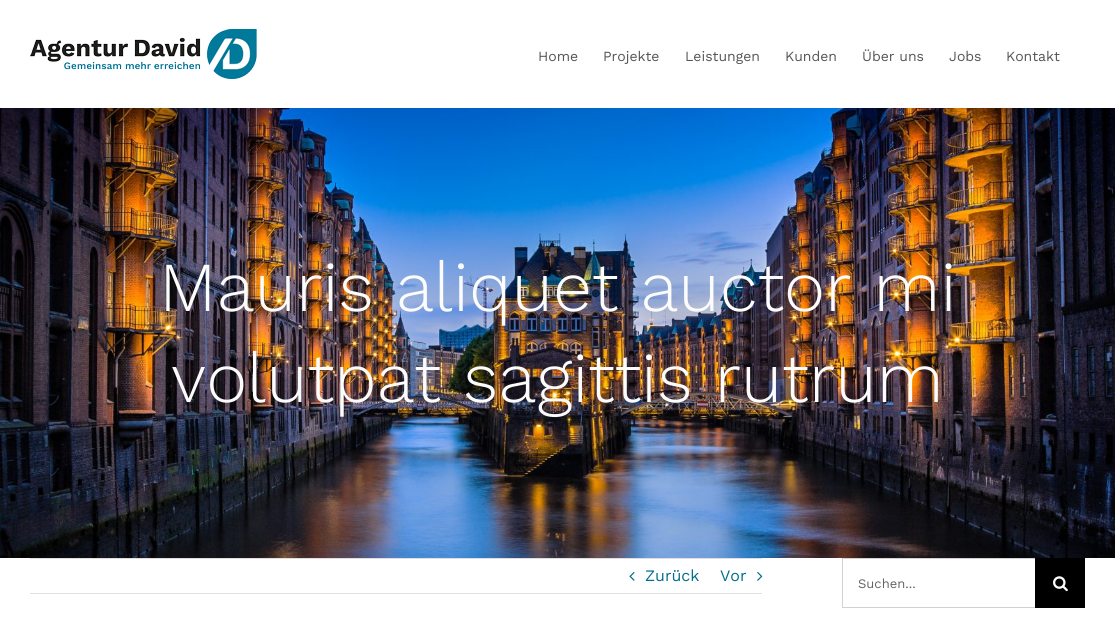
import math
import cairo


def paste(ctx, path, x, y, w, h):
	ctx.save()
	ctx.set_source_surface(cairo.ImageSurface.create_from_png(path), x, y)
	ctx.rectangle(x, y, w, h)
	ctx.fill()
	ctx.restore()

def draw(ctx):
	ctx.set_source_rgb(1, 1, 1)
	ctx.paint()
	paste(ctx, 'media/1.png', 30, 29, 227, 50)
	ctx.select_font_face('Work Sans')
	ctx.set_font_size(14)
	ctx.set_source_rgb(0.333, 0.333, 0.333)
	for x, y, s in [
		(538, 61, 'Home'),
		(603, 61, 'Projekte'),
		(685, 61, 'Leistungen'),
		(785, 61, 'Kunden'),
		(862, 61, 'Über uns'),
		(949, 61, 'Jobs'),
		(1006, 61, 'Kontakt'),
	]:
		ctx.move_to(x, y)
		ctx.show_text(s)
	paste(ctx, 'media/2.png', 0, 108, 1115, 450)
	ctx.select_font_face('Work Sans Light')
	ctx.set_font_size(70)
	ctx.set_source_rgb(0.988, 0.988, 0.988)
	ctx.move_to(159, 311)
	ctx.show_text('Mauris aliquet auctor mi')
	ctx.move_to(171, 402)
	ctx.show_text('volutpat sagittis rutrum')
	ctx.set_source_rgb(0.878, 0.871, 0.871)
	ctx.rectangle(30, 558, 732, 1)
	ctx.fill()
	ctx.rectangle(30, 593, 732, 1)
	ctx.fill()
	paste(ctx, 'media/3.png', 629, 572, 6, 9)
	ctx.select_font_face('Work Sans')
	ctx.set_font_size(16)
	ctx.set_source_rgb(0, 0.427, 0.545)
	ctx.move_to(645, 581)
	ctx.show_text('Zurück')
	ctx.move_to(720, 581)
	ctx.show_text('Vor')
	paste(ctx, 'media/4.png', 757, 572, 6, 9)
	ctx.set_source_rgb(0.824, 0.824, 0.824)
	ctx.rectangle(842, 558, 193, 1)
	ctx.rectangle(842, 607, 193, 1)
	ctx.rectangle(842, 558, 1, 50)
	ctx.fill()
	ctx.set_font_size(13)
	ctx.set_source_rgb(0.392, 0.392, 0.392)
	ctx.move_to(858, 588)
	ctx.show_text('Suchen...')
	ctx.set_source_rgb(0, 0, 0)
	ctx.rectangle(1035, 558, 50, 50)
	ctx.fill()
	paste(ctx, 'media/5.png', 1053, 576, 15, 16)


surface = cairo.ImageSurface(cairo.FORMAT_RGB24, 1115, 619)
ctx = cairo.Context(surface)
options = cairo.FontOptions()
options.set_hint_metrics(cairo.HINT_METRICS_OFF)
options.set_hint_style(cairo.HINT_STYLE_NONE)
ctx.set_font_options(options)
ctx.set_miter_limit(4)
draw(ctx)
surface.write_to_png('image.png')
